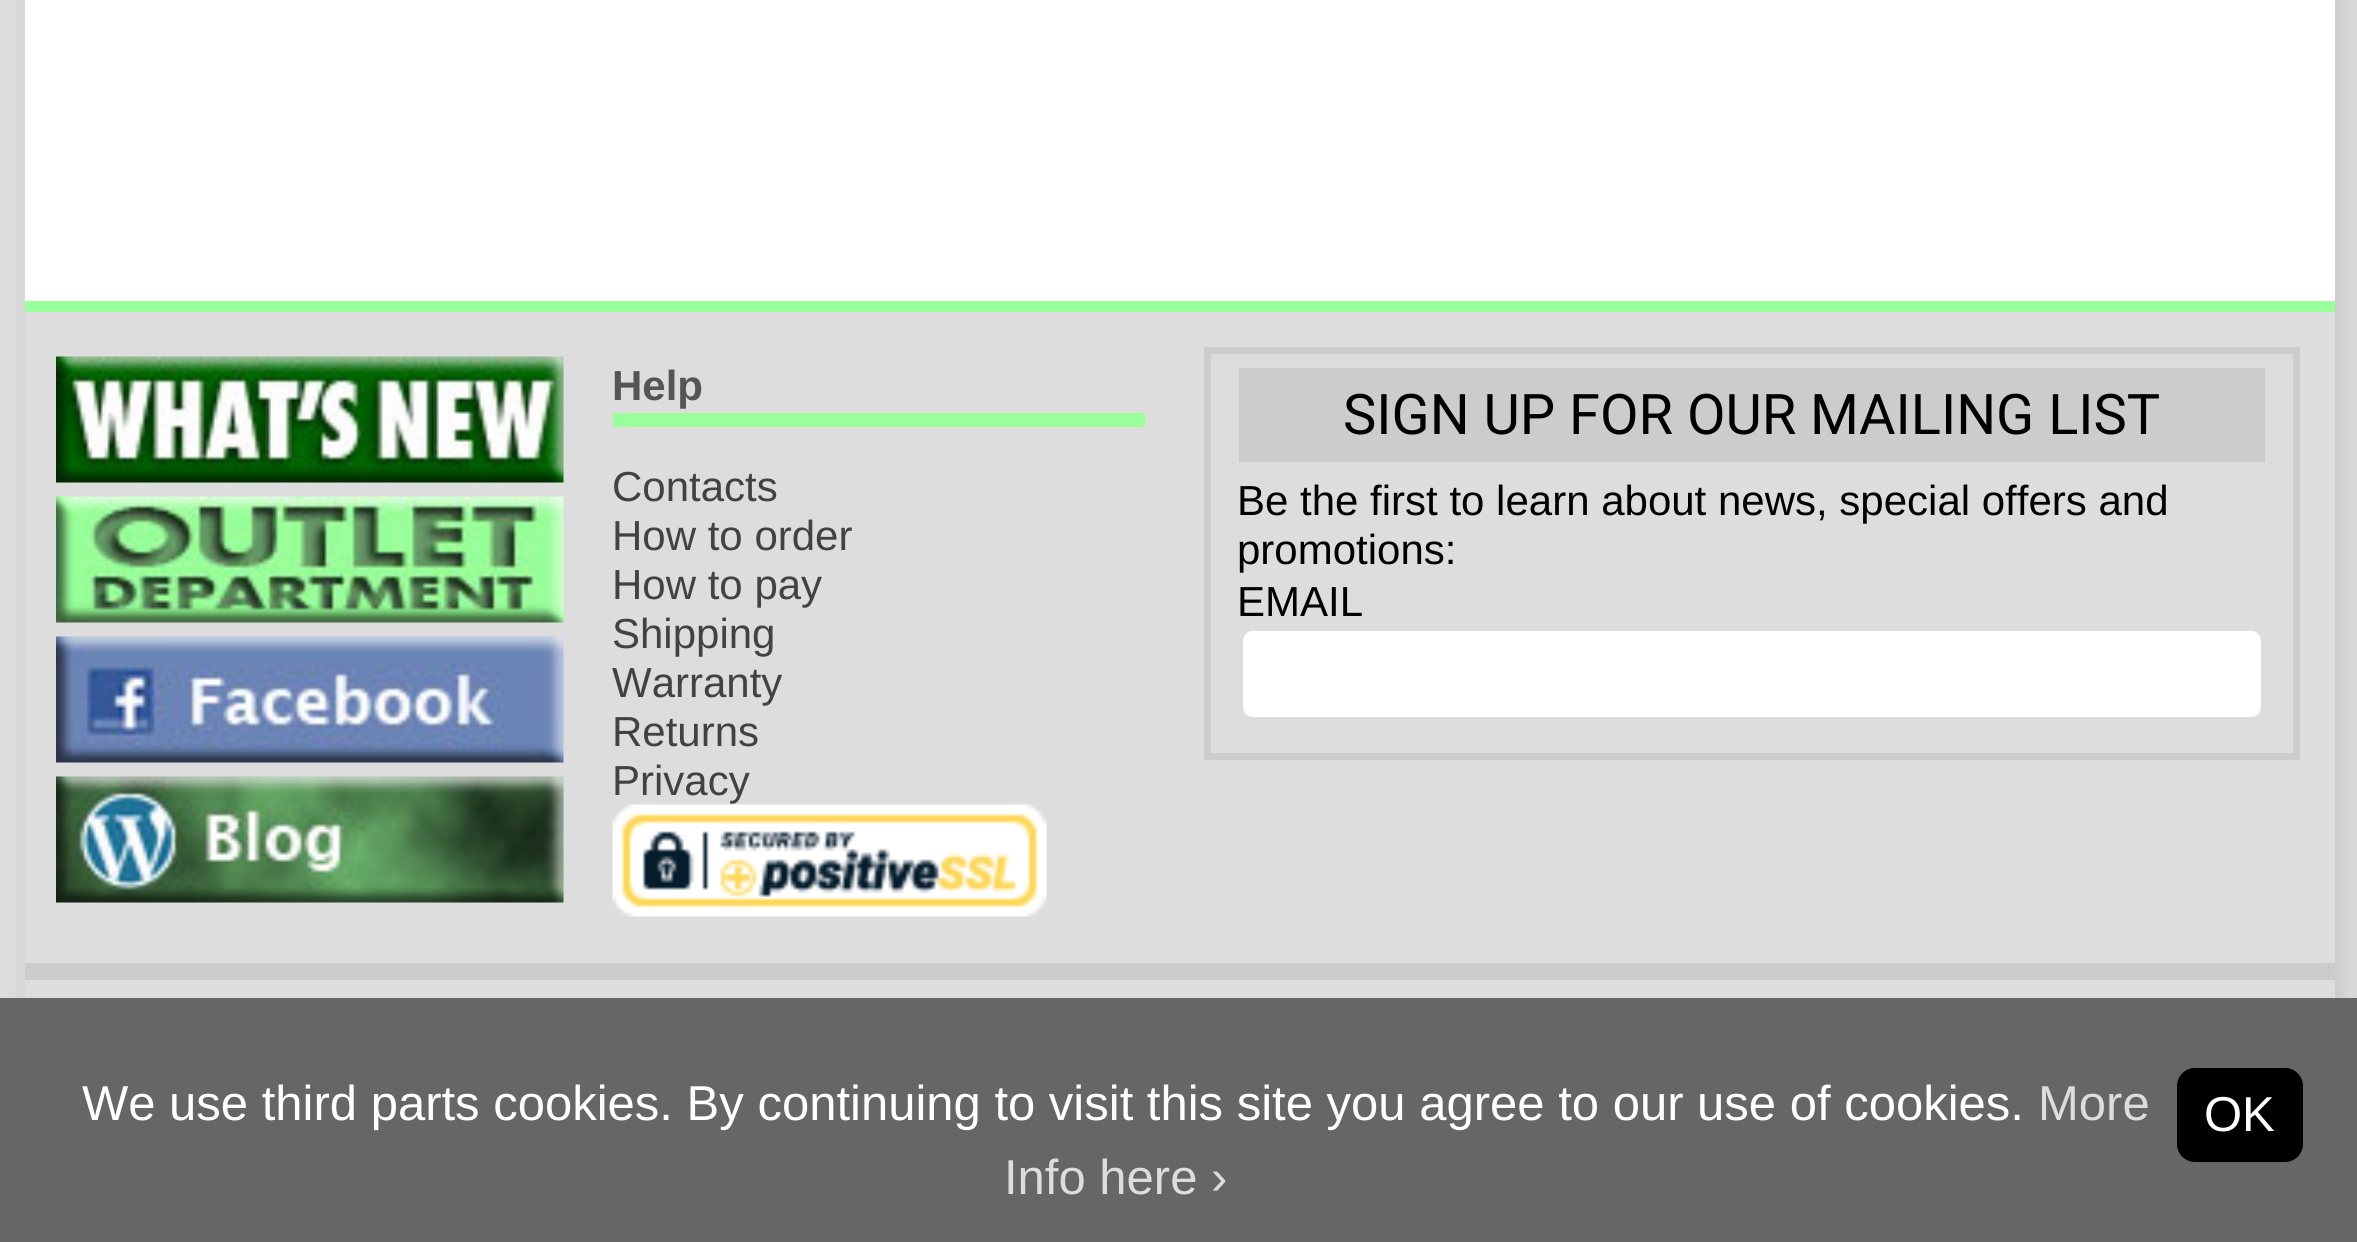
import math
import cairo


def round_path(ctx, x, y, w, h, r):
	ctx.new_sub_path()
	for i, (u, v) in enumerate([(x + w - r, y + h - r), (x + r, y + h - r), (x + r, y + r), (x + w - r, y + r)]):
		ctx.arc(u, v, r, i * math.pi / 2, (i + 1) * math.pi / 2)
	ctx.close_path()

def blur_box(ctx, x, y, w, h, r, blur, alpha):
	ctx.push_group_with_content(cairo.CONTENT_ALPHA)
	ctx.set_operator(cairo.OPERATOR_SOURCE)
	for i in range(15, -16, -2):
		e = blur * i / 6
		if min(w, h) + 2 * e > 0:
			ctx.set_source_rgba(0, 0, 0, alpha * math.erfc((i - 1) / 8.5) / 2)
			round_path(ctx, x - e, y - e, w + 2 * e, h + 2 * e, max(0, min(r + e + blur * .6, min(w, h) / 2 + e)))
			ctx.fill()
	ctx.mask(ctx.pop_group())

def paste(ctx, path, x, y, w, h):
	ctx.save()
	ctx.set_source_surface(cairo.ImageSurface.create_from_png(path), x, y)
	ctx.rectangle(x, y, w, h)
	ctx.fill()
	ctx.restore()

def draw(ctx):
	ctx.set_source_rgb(0.867, 0.867, 0.867)
	ctx.paint()
	ctx.set_source_rgb(0.776, 0.776, 0.776)
	blur_box(ctx, 32, -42, 2310, 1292, 0, 14, 1)
	ctx.set_source_rgb(1, 1, 1)
	ctx.rectangle(25, 0, 2310, 301)
	ctx.fill()
	ctx.set_source_rgb(0.867, 0.867, 0.867)
	ctx.rectangle(25, 312, 2310, 651)
	ctx.fill()
	ctx.set_source_rgb(0.6, 1, 0.6)
	ctx.rectangle(25, 301, 2310, 11)
	ctx.fill()
	paste(ctx, 'media/1.png', 56, 356, 508, 127)
	paste(ctx, 'media/2.png', 56, 496, 508, 127)
	paste(ctx, 'media/3.png', 56, 636, 508, 127)
	paste(ctx, 'media/4.png', 56, 776, 508, 127)
	ctx.rectangle(613, 413, 532, 14)
	ctx.fill()
	ctx.select_font_face('Liberation Sans', cairo.FONT_SLANT_NORMAL, cairo.FONT_WEIGHT_BOLD)
	ctx.set_font_size(42)
	ctx.set_source_rgb(0.333, 0.333, 0.333)
	ctx.move_to(612, 400)
	ctx.show_text('Help')
	ctx.select_font_face('Liberation Sans')
	ctx.set_source_rgb(0.259, 0.259, 0.259)
	for x, y, s in [
		(612, 501, 'Contacts'),
		(612, 550, 'How to order'),
		(612, 599, 'How to pay'),
		(612, 648, 'Shipping'),
		(612, 697, 'Warranty'),
		(612, 746, 'Returns'),
		(612, 795, 'Privacy'),
	]:
		ctx.move_to(x, y)
		ctx.show_text(s)
	paste(ctx, 'media/5.png', 612, 804, 435, 113)
	ctx.rectangle(1207.5, 350.5, 1089, 406)
	ctx.set_source_rgb(0.8, 0.8, 0.8)
	ctx.set_line_width(7)
	ctx.stroke()
	ctx.rectangle(1239, 368, 1026, 94)
	ctx.fill()
	ctx.select_font_face('Roboto')
	ctx.set_font_size(56)
	ctx.set_source_rgb(0, 0, 0)
	ctx.move_to(1343, 434)
	ctx.show_text('SIGN UP FOR OUR MAILING LIST')
	ctx.select_font_face('Liberation Sans')
	ctx.set_font_size(42)
	for x, y, s in [
		(1237, 515, 'Be the first to learn about news, special offers and'),
		(1237, 564, 'promotions:'),
		(1237, 616, 'EMAIL'),
	]:
		ctx.move_to(x, y)
		ctx.show_text(s)
	ctx.set_source_rgb(1, 1, 1)
	round_path(ctx, 1241, 629, 1022, 90, 12)
	ctx.fill_preserve()
	ctx.set_source_rgb(0.867, 0.867, 0.867)
	ctx.set_line_width(4)
	ctx.stroke()
	ctx.rectangle(25, 980, 2310, 18)
	ctx.fill()
	ctx.set_source_rgb(0.8, 0.8, 0.8)
	ctx.rectangle(25, 963, 2302, 17)
	ctx.fill()
	ctx.set_source_rgb(0.4, 0.4, 0.4)
	ctx.rectangle(0, 998, 2357, 244)
	ctx.fill()
	ctx.set_font_size(49)
	ctx.set_source_rgb(1, 1, 1)
	ctx.move_to(82, 1120)
	ctx.show_text('We use third parts cookies. By continuing to visit this site you agree to our use of cookies.')
	ctx.set_source_rgb(0.867, 0.867, 0.867)
	ctx.move_to(2038, 1120)
	ctx.show_text('More')
	ctx.set_source_rgb(0, 0, 0)
	round_path(ctx, 2177, 1068, 126, 94, 18)
	ctx.fill()
	ctx.set_source_rgb(1, 1, 1)
	ctx.move_to(2204, 1131)
	ctx.show_text('OK')
	ctx.set_source_rgb(0.867, 0.867, 0.867)
	ctx.move_to(1004, 1194)
	ctx.show_text('Info here ›')


surface = cairo.ImageSurface(cairo.FORMAT_RGB24, 2357, 1242)
ctx = cairo.Context(surface)
options = cairo.FontOptions()
options.set_hint_metrics(cairo.HINT_METRICS_OFF)
options.set_hint_style(cairo.HINT_STYLE_NONE)
ctx.set_font_options(options)
ctx.set_miter_limit(4)
draw(ctx)
surface.write_to_png('image.png')
